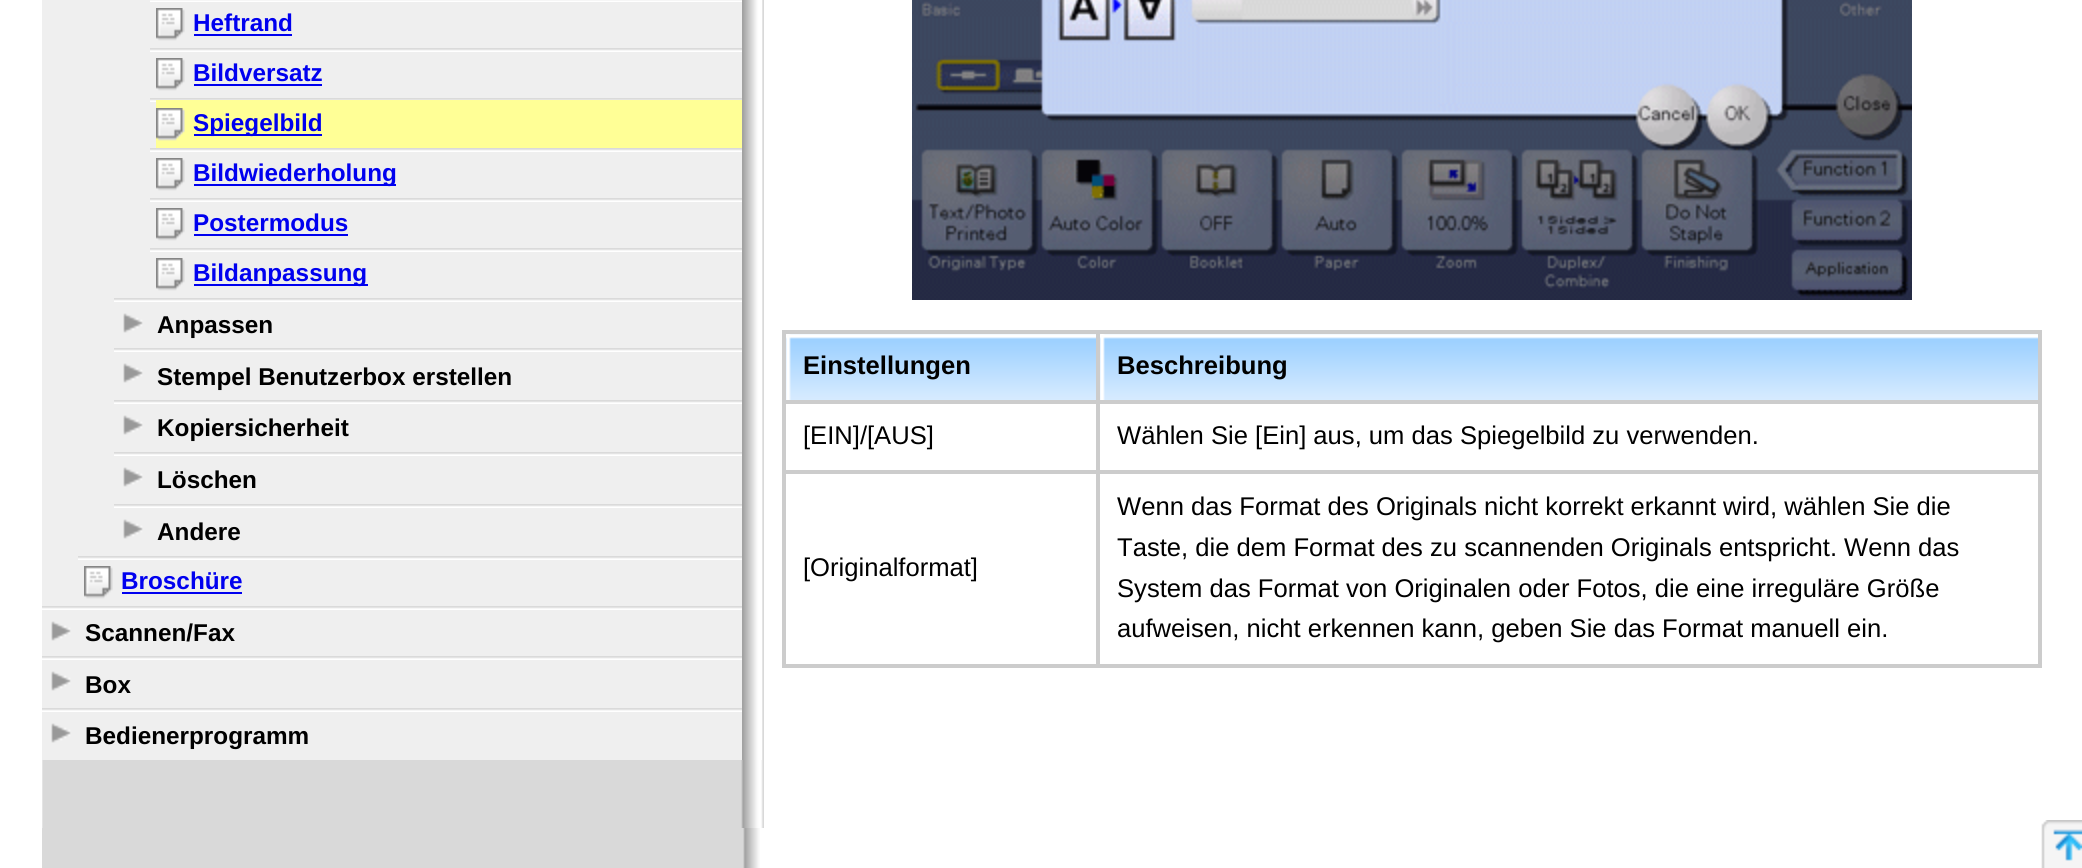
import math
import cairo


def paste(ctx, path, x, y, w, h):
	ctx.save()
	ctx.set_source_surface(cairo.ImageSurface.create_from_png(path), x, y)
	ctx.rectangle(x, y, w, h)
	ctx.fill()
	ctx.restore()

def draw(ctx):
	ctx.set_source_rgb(1, 1, 1)
	ctx.paint()
	paste(ctx, 'media/1.png', 42, 0, 722, 828)
	paste(ctx, 'media/2.png', 742, 0, 20, 760)
	ctx.set_source_rgb(0.937, 0.937, 0.937)
	ctx.rectangle(42, 0, 700, 760)
	ctx.fill()
	paste(ctx, 'media/3.png', 150, 0, 592, 2)
	paste(ctx, 'media/4.png', 156, 8, 29, 33)
	ctx.select_font_face('Liberation Sans', cairo.FONT_SLANT_NORMAL, cairo.FONT_WEIGHT_BOLD)
	ctx.set_font_size(24.3)
	ctx.set_source_rgb(0, 0, 0.937)
	ctx.move_to(193, 31)
	ctx.show_text('Heftrand')
	ctx.rectangle(194, 34, 98, 2)
	ctx.fill()
	paste(ctx, 'media/5.png', 150, 48, 592, 4)
	paste(ctx, 'media/4.png', 156, 58, 29, 33)
	ctx.move_to(193, 81)
	ctx.show_text('Bildversatz')
	ctx.rectangle(194, 84, 128, 2)
	ctx.fill()
	paste(ctx, 'media/5.png', 150, 98, 592, 4)
	ctx.set_source_rgb(1, 1, 0.588)
	ctx.rectangle(156, 100, 586, 48)
	ctx.fill()
	paste(ctx, 'media/6.png', 156, 108, 29, 33)
	ctx.set_source_rgb(0, 0, 0.937)
	ctx.rectangle(194, 134, 128, 2)
	ctx.fill()
	ctx.move_to(193, 131)
	ctx.show_text('Spiegelbild')
	paste(ctx, 'media/5.png', 150, 148, 592, 4)
	paste(ctx, 'media/4.png', 156, 158, 29, 33)
	ctx.rectangle(194, 184, 202, 2)
	ctx.fill()
	ctx.move_to(193, 181)
	ctx.show_text('Bildwiederholung')
	paste(ctx, 'media/5.png', 150, 198, 592, 4)
	paste(ctx, 'media/4.png', 156, 208, 29, 33)
	ctx.move_to(193, 231)
	ctx.show_text('Postermodus')
	ctx.rectangle(194, 234, 154, 2)
	ctx.fill()
	paste(ctx, 'media/5.png', 150, 248, 592, 4)
	paste(ctx, 'media/4.png', 156, 258, 29, 33)
	ctx.rectangle(194, 284, 174, 2)
	ctx.fill()
	ctx.move_to(193, 281)
	ctx.show_text('Bildanpassung')
	paste(ctx, 'media/7.png', 114, 298, 628, 4)
	paste(ctx, 'media/8.png', 123, 313, 20, 20)
	ctx.set_source_rgb(0, 0, 0)
	ctx.move_to(157, 333)
	ctx.show_text('Anpassen')
	paste(ctx, 'media/7.png', 114, 348, 628, 4)
	paste(ctx, 'media/8.png', 123, 363, 20, 20)
	ctx.move_to(157, 385)
	ctx.show_text('Stempel Benutzerbox erstellen')
	paste(ctx, 'media/7.png', 114, 400, 628, 4)
	paste(ctx, 'media/8.png', 123, 415, 20, 20)
	ctx.move_to(157, 436)
	ctx.show_text('Kopiersicherheit')
	paste(ctx, 'media/7.png', 114, 452, 628, 4)
	paste(ctx, 'media/8.png', 123, 467, 20, 20)
	ctx.move_to(157, 488)
	ctx.show_text('Löschen')
	paste(ctx, 'media/7.png', 114, 504, 628, 4)
	paste(ctx, 'media/8.png', 123, 519, 20, 20)
	ctx.move_to(157, 540)
	ctx.show_text('Andere')
	paste(ctx, 'media/9.png', 78, 556, 664, 4)
	paste(ctx, 'media/4.png', 84, 566, 29, 33)
	ctx.set_source_rgb(0, 0, 0.937)
	ctx.move_to(121, 589)
	ctx.show_text('Broschüre')
	ctx.rectangle(122, 592, 120, 2)
	ctx.fill()
	paste(ctx, 'media/10.png', 42, 606, 700, 4)
	paste(ctx, 'media/8.png', 51, 621, 20, 20)
	ctx.set_source_rgb(0, 0, 0)
	ctx.move_to(85, 641)
	ctx.show_text('Scannen/Fax')
	paste(ctx, 'media/10.png', 42, 656, 700, 4)
	paste(ctx, 'media/8.png', 51, 671, 20, 20)
	ctx.move_to(85, 693)
	ctx.show_text('Box')
	paste(ctx, 'media/10.png', 42, 708, 700, 4)
	paste(ctx, 'media/8.png', 51, 723, 20, 20)
	ctx.move_to(85, 744)
	ctx.show_text('Bedienerprogramm')
	paste(ctx, 'media/11.png', 912, 0, 1000, 300)
	ctx.set_source_rgb(0.8, 0.8, 0.8)
	ctx.rectangle(782, 330, 1260, 4)
	ctx.rectangle(2038, 330, 4, 338)
	ctx.rectangle(782, 664, 1260, 4)
	ctx.rectangle(782, 330, 4, 338)
	ctx.fill()
	paste(ctx, 'media/12.png', 786, 334, 310, 66)
	ctx.set_font_size(25.6)
	ctx.set_source_rgb(0, 0, 0)
	ctx.move_to(803, 374)
	ctx.show_text('Einstellungen')
	paste(ctx, 'media/13.png', 1100, 334, 938, 66)
	ctx.set_source_rgb(0.8, 0.8, 0.8)
	ctx.rectangle(1096, 400, 946, 4)
	ctx.rectangle(1096, 470, 946, 4)
	ctx.rectangle(1096, 470, 4, 198)
	ctx.rectangle(782, 470, 318, 4)
	ctx.rectangle(1096, 400, 4, 74)
	ctx.rectangle(782, 400, 318, 4)
	ctx.rectangle(1096, 330, 4, 74)
	ctx.fill()
	ctx.set_source_rgb(0, 0, 0)
	ctx.move_to(1117, 374)
	ctx.show_text('Beschreibung')
	ctx.select_font_face('Liberation Sans')
	for x, y, s in [
		(803, 444, '[EIN]/[AUS]'),
		(1117, 444, 'Wählen Sie [Ein] aus, um das Spiegelbild zu verwenden.'),
		(803, 576, '[Originalformat]'),
		(1117, 515, 'Wenn das Format des Originals nicht korrekt erkannt wird, wählen Sie die'),
		(1117, 556, 'Taste, die dem Format des zu scannenden Originals entspricht. Wenn das'),
		(1117, 597, 'System das Format von Originalen oder Fotos, die eine irreguläre Größe'),
		(1117, 637, 'aufweisen, nicht erkennen kann, geben Sie das Format manuell ein.'),
	]:
		ctx.move_to(x, y)
		ctx.show_text(s)
	paste(ctx, 'media/14.png', 42, 828, 718, 40)
	paste(ctx, 'media/15.png', 2041, 820, 41, 48)


surface = cairo.ImageSurface(cairo.FORMAT_RGB24, 2082, 868)
ctx = cairo.Context(surface)
options = cairo.FontOptions()
options.set_hint_metrics(cairo.HINT_METRICS_OFF)
options.set_hint_style(cairo.HINT_STYLE_NONE)
ctx.set_font_options(options)
ctx.set_miter_limit(4)
draw(ctx)
surface.write_to_png('image.png')
